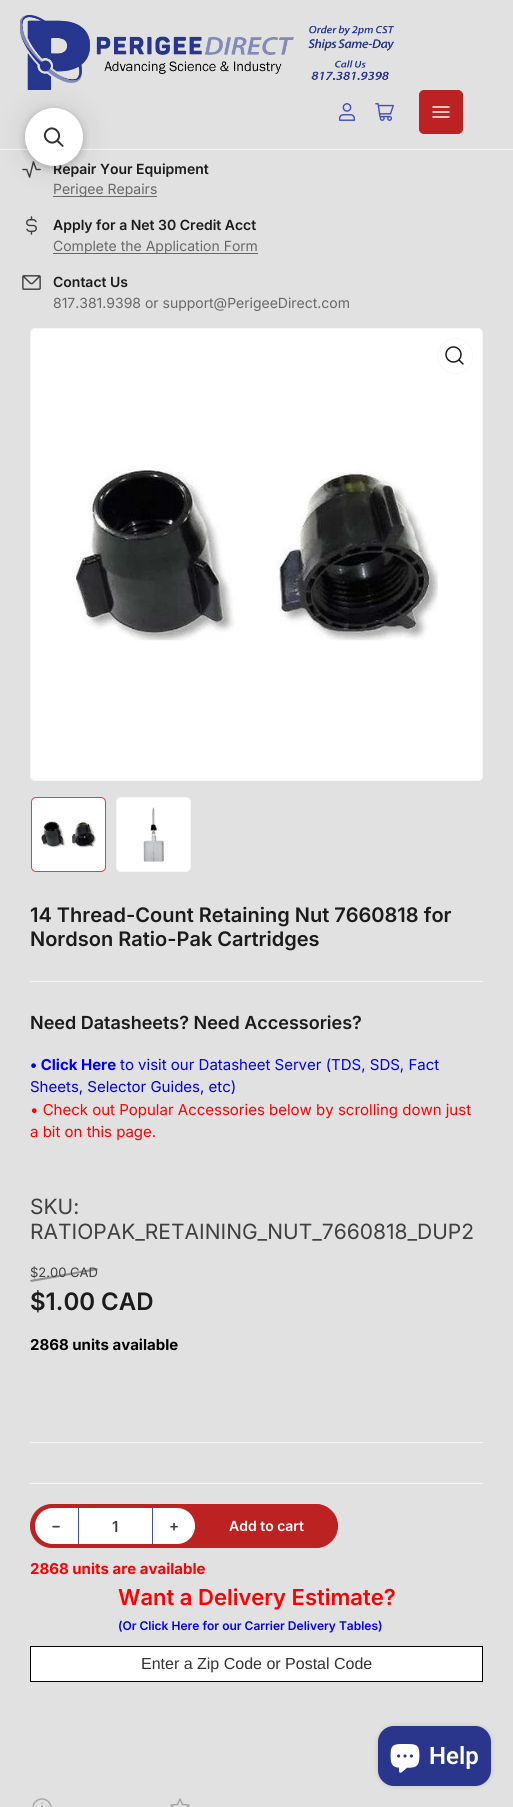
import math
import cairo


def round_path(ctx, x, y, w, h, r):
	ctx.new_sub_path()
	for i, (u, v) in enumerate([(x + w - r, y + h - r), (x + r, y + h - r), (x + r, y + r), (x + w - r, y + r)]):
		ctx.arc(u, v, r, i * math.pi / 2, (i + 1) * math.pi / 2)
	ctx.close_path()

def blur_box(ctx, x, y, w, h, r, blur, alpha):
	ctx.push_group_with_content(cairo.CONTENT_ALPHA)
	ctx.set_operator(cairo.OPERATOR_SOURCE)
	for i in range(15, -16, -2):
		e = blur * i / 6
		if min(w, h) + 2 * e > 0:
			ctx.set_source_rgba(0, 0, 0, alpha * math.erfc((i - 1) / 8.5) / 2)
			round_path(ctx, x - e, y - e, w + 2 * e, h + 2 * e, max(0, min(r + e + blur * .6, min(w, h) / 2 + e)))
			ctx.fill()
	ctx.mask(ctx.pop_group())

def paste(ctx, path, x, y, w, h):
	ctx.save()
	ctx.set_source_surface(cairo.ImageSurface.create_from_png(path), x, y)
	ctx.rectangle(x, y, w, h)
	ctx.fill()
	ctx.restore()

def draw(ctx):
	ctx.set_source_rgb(0.882, 0.882, 0.882)
	ctx.paint()
	ctx.set_source_rgb(0.965, 0.965, 0.965)
	ctx.rectangle(0, 149, 513, 1)
	ctx.fill()
	paste(ctx, 'media/1.png', 20, 15, 374, 75)
	paste(ctx, 'media/2.png', 339, 103, 16, 18)
	paste(ctx, 'media/3.png', 375, 103, 19, 18)
	ctx.set_source_rgb(0.737, 0.133, 0.133)
	round_path(ctx, 419.5, 90.5, 43, 43, 4.5)
	ctx.fill_preserve()
	ctx.set_line_width(1)
	ctx.stroke()
	paste(ctx, 'media/4.png', 432, 106, 18, 12)
	paste(ctx, 'media/5.png', 22, 161, 19, 17)
	ctx.set_source_rgb(0, 0, 0)
	blur_box(ctx, 25, 112, 58, 58, 29, 4, 0.05)
	blur_box(ctx, 25, 110, 58, 58, 29, 4, 0.15)
	ctx.set_source_rgb(0.408, 0.408, 0.408)
	ctx.rectangle(53, 196, 104, 1)
	ctx.fill()
	ctx.set_source_rgb(0, 0, 0)
	blur_box(ctx, 25, 108, 58, 58, 29, 15, 0.1)
	ctx.select_font_face('Inter SemiBold')
	ctx.set_font_size(14)
	ctx.set_source_rgb(0.106, 0.106, 0.106)
	ctx.move_to(53, 174)
	ctx.show_text('Repair Your Equipment')
	ctx.set_source_rgb(1, 1, 1)
	ctx.new_path()
	ctx.arc(54, 137, 29, 0, 2 * math.pi)
	ctx.fill()
	ctx.new_path()
	ctx.move_to(47, 130.5)
	ctx.curve_to(53.5, 124, 63.5, 134, 57, 140.5)
	ctx.curve_to(50.5, 147, 40.5, 137, 47, 130.5)
	ctx.close_path()
	ctx.set_source_rgb(0.2, 0.2, 0.2)
	ctx.set_line_width(2)
	ctx.stroke()
	ctx.new_path()
	ctx.move_to(56, 141)
	ctx.line_to(57.5, 139.5)
	ctx.line_to(63.5, 145.5)
	ctx.curve_to(64, 146.5, 62.5, 147.5, 62, 146.5)
	ctx.close_path()
	ctx.fill()
	ctx.select_font_face('Inter')
	ctx.set_source_rgb(0.408, 0.408, 0.408)
	ctx.move_to(53, 194)
	ctx.show_text('Perigee Repairs')
	paste(ctx, 'media/6.png', 26, 216, 11, 19)
	ctx.select_font_face('Inter SemiBold')
	ctx.set_source_rgb(0.106, 0.106, 0.106)
	ctx.move_to(53, 230)
	ctx.show_text('Apply for a Net 30 Credit Acct')
	ctx.set_source_rgb(0.408, 0.408, 0.408)
	ctx.rectangle(53, 253, 205, 1)
	ctx.fill()
	ctx.select_font_face('Inter')
	ctx.move_to(53, 251)
	ctx.show_text('Complete the Application Form')
	paste(ctx, 'media/7.png', 22, 275, 19, 15)
	ctx.select_font_face('Inter SemiBold')
	ctx.set_source_rgb(0.106, 0.106, 0.106)
	ctx.move_to(53, 287)
	ctx.show_text('Contact Us')
	ctx.select_font_face('Inter')
	ctx.set_source_rgb(0.408, 0.408, 0.408)
	ctx.move_to(53, 308)
	ctx.show_text('817.381.9398 or support@PerigeeDirect.com')
	ctx.set_source_rgb(1, 1, 1)
	round_path(ctx, 30.5, 328.5, 452, 452, 4.5)
	ctx.fill_preserve()
	ctx.set_source_rgb(0.965, 0.965, 0.965)
	ctx.set_line_width(1)
	ctx.stroke()
	ctx.arc(455, 356, 17.5, 0, 2 * math.pi)
	ctx.stroke()
	paste(ctx, 'media/8.png', 445, 346, 19, 19)
	paste(ctx, 'media/9.png', 76, 469, 363, 172)
	ctx.set_source_rgb(1, 1, 1)
	round_path(ctx, 31.5, 797.5, 74, 74, 4.5)
	ctx.fill_preserve()
	ctx.set_source_rgb(0.969, 0.208, 0.255)
	ctx.stroke()
	paste(ctx, 'media/10.png', 41, 821, 55, 27)
	ctx.set_source_rgb(1, 1, 1)
	round_path(ctx, 116.5, 797.5, 74, 74, 4.5)
	ctx.fill_preserve()
	ctx.set_source_rgb(0.965, 0.965, 0.965)
	ctx.stroke()
	paste(ctx, 'media/11.png', 143, 807, 21, 55)
	ctx.rectangle(30, 981, 453, 1)
	ctx.fill()
	ctx.select_font_face('Inter SemiBold')
	ctx.set_font_size(20)
	ctx.set_source_rgb(0.106, 0.106, 0.106)
	ctx.move_to(30, 922)
	ctx.show_text('14 Thread-Count Retaining Nut 7660818 for')
	ctx.move_to(30, 946)
	ctx.show_text('Nordson Ratio-Pak Cartridges')
	ctx.set_font_size(18)
	ctx.move_to(30, 1029)
	ctx.show_text('Need Datasheets? Need Accessories?')
	ctx.select_font_face('Inter', cairo.FONT_SLANT_NORMAL, cairo.FONT_WEIGHT_BOLD)
	ctx.set_font_size(15)
	ctx.set_source_rgb(0, 0, 0.933)
	ctx.move_to(30, 1070)
	ctx.show_text('• Click Here')
	ctx.select_font_face('Inter')
	ctx.move_to(120, 1070)
	ctx.show_text('to visit our Datasheet Server (TDS, SDS, Fact')
	ctx.move_to(30, 1092)
	ctx.show_text('Sheets, Selector Guides, etc)')
	ctx.set_source_rgb(1, 0, 0)
	ctx.move_to(30, 1115)
	ctx.show_text('• Check out Popular Accessories below by scrolling down just')
	ctx.move_to(30, 1137)
	ctx.show_text('a bit on this page.')
	ctx.set_font_size(21)
	ctx.set_source_rgb(0.251, 0.251, 0.251)
	ctx.move_to(30, 1214)
	ctx.show_text('SKU:')
	ctx.move_to(30, 1239)
	ctx.show_text('RATIOPAK_RETAINING_NUT_7660818_DUP2')
	ctx.set_font_size(13)
	ctx.move_to(30, 1277)
	ctx.show_text('$2.00 CAD')
	ctx.set_source_rgba(0.251, 0.251, 0.251, 0.5)
	ctx.new_path()
	ctx.move_to(30, 1280)
	ctx.line_to(97, 1268)
	ctx.line_to(98, 1270)
	ctx.line_to(31, 1282)
	ctx.close_path()
	ctx.fill()
	ctx.select_font_face('Inter SemiBold')
	ctx.set_font_size(24)
	ctx.set_source_rgb(0.106, 0.106, 0.106)
	ctx.move_to(30, 1310)
	ctx.show_text('$1.00 CAD')
	ctx.select_font_face('Inter', cairo.FONT_SLANT_NORMAL, cairo.FONT_WEIGHT_BOLD)
	ctx.set_font_size(15)
	ctx.set_source_rgb(0, 0, 0)
	ctx.move_to(30, 1350)
	ctx.show_text('2868 units available')
	ctx.set_source_rgb(0.965, 0.965, 0.965)
	ctx.rectangle(30, 1442, 453, 1)
	ctx.fill()
	ctx.rectangle(30, 1483, 453, 1)
	ctx.fill()
	ctx.set_source_rgb(0.737, 0.133, 0.133)
	round_path(ctx, 30.5, 1504.5, 307, 43, 21.5)
	ctx.fill_preserve()
	ctx.stroke()
	ctx.set_source_rgb(1, 1, 1)
	ctx.new_path()
	ctx.move_to(53, 1508)
	ctx.line_to(78, 1508)
	ctx.line_to(78, 1544)
	ctx.line_to(53, 1544)
	ctx.curve_to(43, 1544, 35, 1536, 35, 1526)
	ctx.curve_to(35, 1516, 43, 1508, 53, 1508)
	ctx.close_path()
	ctx.fill()
	ctx.select_font_face('Inter SemiBold')
	ctx.set_source_rgb(0.251, 0.251, 0.251)
	ctx.move_to(51, 1531)
	ctx.show_text('−')
	ctx.set_source_rgb(1, 1, 1)
	ctx.rectangle(79, 1508, 73, 36)
	ctx.fill()
	ctx.set_source_rgb(0.247, 0.31, 0.722)
	ctx.rectangle(152, 1508, 1, 36)
	ctx.rectangle(78, 1508, 1, 36)
	ctx.fill()
	ctx.set_source_rgb(0.251, 0.251, 0.251)
	ctx.move_to(112, 1532)
	ctx.show_text('1')
	ctx.set_source_rgb(1, 1, 1)
	ctx.new_path()
	ctx.move_to(153, 1508)
	ctx.line_to(177, 1508)
	ctx.curve_to(187, 1508, 195, 1516, 195, 1526)
	ctx.curve_to(195, 1536, 187, 1544, 177, 1544)
	ctx.line_to(153, 1544)
	ctx.close_path()
	ctx.fill()
	ctx.set_source_rgb(0.251, 0.251, 0.251)
	ctx.move_to(169, 1531)
	ctx.show_text('+')
	ctx.set_source_rgb(0.737, 0.133, 0.133)
	round_path(ctx, 195.5, 1504.5, 141, 43, 21.5)
	ctx.fill_preserve()
	ctx.stroke()
	ctx.set_font_size(14)
	ctx.set_source_rgb(1, 1, 1)
	ctx.move_to(229, 1531)
	ctx.show_text('Add to cart')
	ctx.select_font_face('Inter', cairo.FONT_SLANT_NORMAL, cairo.FONT_WEIGHT_BOLD)
	ctx.set_font_size(15)
	ctx.set_source_rgb(1, 0, 0)
	ctx.move_to(30, 1574)
	ctx.show_text('2868 units are available')
	ctx.select_font_face('Inter SemiBold')
	ctx.set_font_size(22)
	ctx.move_to(118, 1605)
	ctx.show_text('Want a Delivery Estimate?')
	ctx.set_font_size(12)
	ctx.set_source_rgb(0, 0, 0.933)
	ctx.move_to(118, 1630)
	ctx.show_text('(Or Click Here for our Carrier Delivery Tables)')
	ctx.set_source_rgb(1, 1, 1)
	ctx.rectangle(30.5, 1646.5, 452, 35)
	ctx.fill_preserve()
	ctx.set_source_rgb(0, 0, 0)
	ctx.stroke()
	ctx.select_font_face('Liberation Sans')
	ctx.set_font_size(16)
	ctx.set_source_rgb(0.2, 0.2, 0.2)
	ctx.move_to(141, 1669)
	ctx.show_text('Enter a Zip Code or Postal Code')
	paste(ctx, 'media/12.png', 32, 1798, 20, 9)
	paste(ctx, 'media/13.png', 170, 1798, 20, 9)
	ctx.set_source_rgb(0, 0, 0)
	blur_box(ctx, 378, 1726, 113, 60, 16, 2.5, 0.15)
	ctx.set_source_rgb(0.161, 0.212, 0.545)
	round_path(ctx, 378, 1726, 113, 60, 16)
	ctx.fill()
	paste(ctx, 'media/14.png', 390, 1744, 30, 29)
	ctx.select_font_face('Roboto SemiBold')
	ctx.set_font_size(24)
	ctx.set_source_rgb(1, 1, 1)
	ctx.move_to(429, 1764)
	ctx.show_text('Help')


surface = cairo.ImageSurface(cairo.FORMAT_RGB24, 513, 1807)
ctx = cairo.Context(surface)
options = cairo.FontOptions()
options.set_hint_metrics(cairo.HINT_METRICS_OFF)
options.set_hint_style(cairo.HINT_STYLE_NONE)
ctx.set_font_options(options)
ctx.set_miter_limit(4)
draw(ctx)
surface.write_to_png('image.png')
